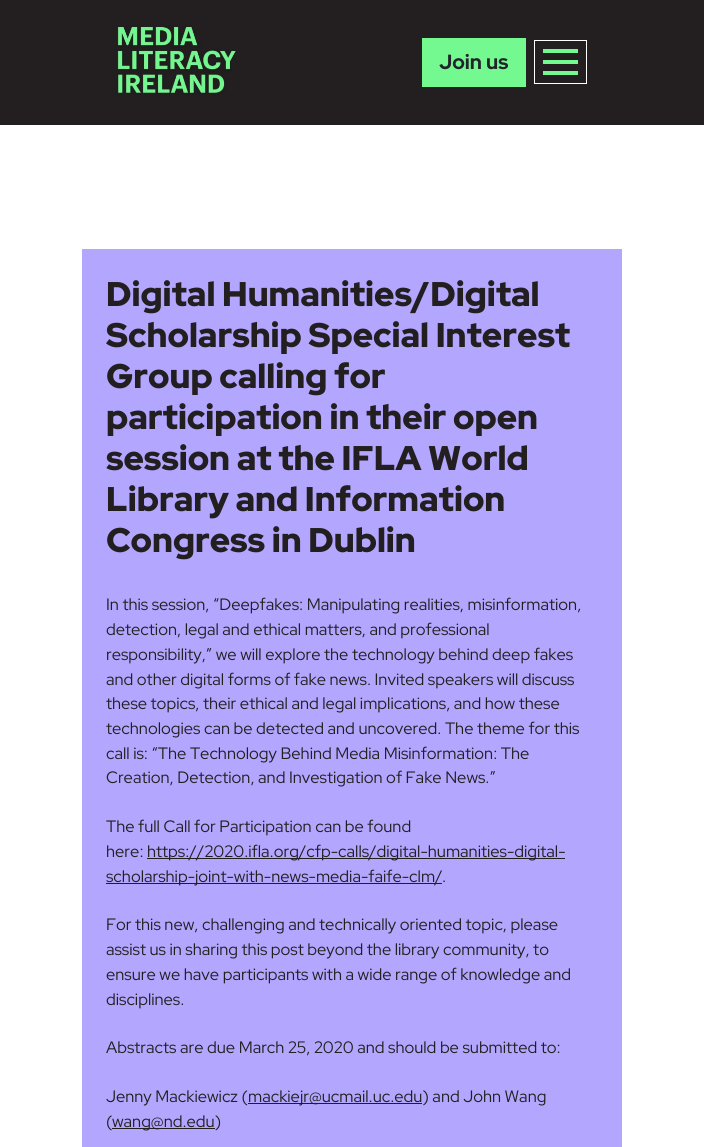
import math
import cairo


def paste(ctx, path, x, y, w, h):
	ctx.save()
	ctx.set_source_surface(cairo.ImageSurface.create_from_png(path), x, y)
	ctx.rectangle(x, y, w, h)
	ctx.fill()
	ctx.restore()

def draw(ctx):
	ctx.set_source_rgb(1, 1, 1)
	ctx.paint()
	ctx.set_source_rgb(0.137, 0.122, 0.125)
	ctx.rectangle(0, 0, 704, 125)
	ctx.fill()
	paste(ctx, 'media/1.png', 117, 25, 119, 70)
	ctx.set_source_rgb(0.455, 0.973, 0.565)
	ctx.rectangle(422, 38, 104, 49)
	ctx.fill()
	ctx.select_font_face('Red Hat Display', cairo.FONT_SLANT_NORMAL, cairo.FONT_WEIGHT_BOLD)
	ctx.set_font_size(20.5)
	ctx.set_source_rgb(0.129, 0.145, 0.161)
	ctx.move_to(439, 69)
	ctx.show_text('Join us')
	ctx.rectangle(534.5, 40.5, 52, 43)
	ctx.set_source_rgb(1, 1, 1)
	ctx.set_line_width(1)
	ctx.stroke()
	ctx.set_source_rgb(0.455, 0.973, 0.565)
	ctx.rectangle(543, 49, 35, 4)
	ctx.rectangle(543, 60, 35, 4)
	ctx.rectangle(543, 71, 35, 4)
	ctx.fill()
	ctx.set_source_rgb(0.702, 0.651, 1)
	ctx.rectangle(82, 249, 540, 898)
	ctx.fill()
	ctx.select_font_face('Red Hat Display Black')
	ctx.set_font_size(34.25)
	ctx.set_source_rgb(0.137, 0.122, 0.125)
	for x, y, s in [
		(106, 306, 'Digital Humanities/Digital'),
		(106, 347, 'Scholarship Special Interest'),
		(106, 388, 'Group calling for'),
		(106, 429, 'participation in their open'),
		(106, 470, 'session at the IFLA World'),
		(106, 511, 'Library and Information'),
		(106, 552, 'Congress in Dublin'),
	]:
		ctx.move_to(x, y)
		ctx.show_text(s)
	ctx.select_font_face('Red Hat Display')
	ctx.set_font_size(16.5)
	for x, y, s in [
		(106, 610, 'In this session, “Deepfakes: Manipulating realities, misinformation,'),
		(106, 635, 'detection, legal and ethical matters, and professional'),
		(106, 660, 'responsibility,” we will explore the technology behind deep fakes'),
		(106, 685, 'and other digital forms of fake news. Invited speakers will discuss'),
		(106, 709, 'these topics, their ethical and legal implications, and how these'),
		(106, 734, 'technologies can be detected and uncovered. The theme for this'),
		(106, 759, 'call is: “The Technology Behind Media Misinformation: The'),
		(106, 783, 'Creation, Detection, and Investigation of Fake News.”'),
		(106, 832, 'The full Call for Participation can be found'),
		(106, 857, 'here:'),
	]:
		ctx.move_to(x, y)
		ctx.show_text(s)
	ctx.rectangle(147, 858, 418, 1)
	ctx.fill()
	ctx.move_to(147, 857)
	ctx.show_text('https://2020.ifla.org/cfp-calls/digital-humanities-digital-')
	ctx.rectangle(106, 883, 336, 1)
	ctx.fill()
	for x, y, s in [
		(106, 882, 'scholarship-joint-with-news-media-faife-clm/'),
		(442, 882, '.'),
		(106, 930, 'For this new, challenging and technically oriented topic, please'),
		(106, 955, 'assist us in sharing this post beyond the library community, to'),
		(106, 980, 'ensure we have participants with a wide range of knowledge and'),
		(106, 1005, 'disciplines.'),
		(106, 1053, 'Abstracts are due March 25, 2020 and should be submitted to:'),
		(106, 1102, 'Jenny Mackiewicz ('),
	]:
		ctx.move_to(x, y)
		ctx.show_text(s)
	ctx.rectangle(248, 1103, 174, 1)
	ctx.fill()
	ctx.move_to(248, 1102)
	ctx.show_text('mackiejr@ucmail.uc.edu) and John Wang')
	ctx.move_to(106, 1127)
	ctx.show_text('(')
	ctx.rectangle(112, 1128, 103, 1)
	ctx.fill()
	ctx.move_to(112, 1127)
	ctx.show_text('wang@nd.edu)')


surface = cairo.ImageSurface(cairo.FORMAT_RGB24, 704, 1147)
ctx = cairo.Context(surface)
options = cairo.FontOptions()
options.set_hint_metrics(cairo.HINT_METRICS_OFF)
options.set_hint_style(cairo.HINT_STYLE_NONE)
ctx.set_font_options(options)
ctx.set_miter_limit(4)
draw(ctx)
surface.write_to_png('image.png')
